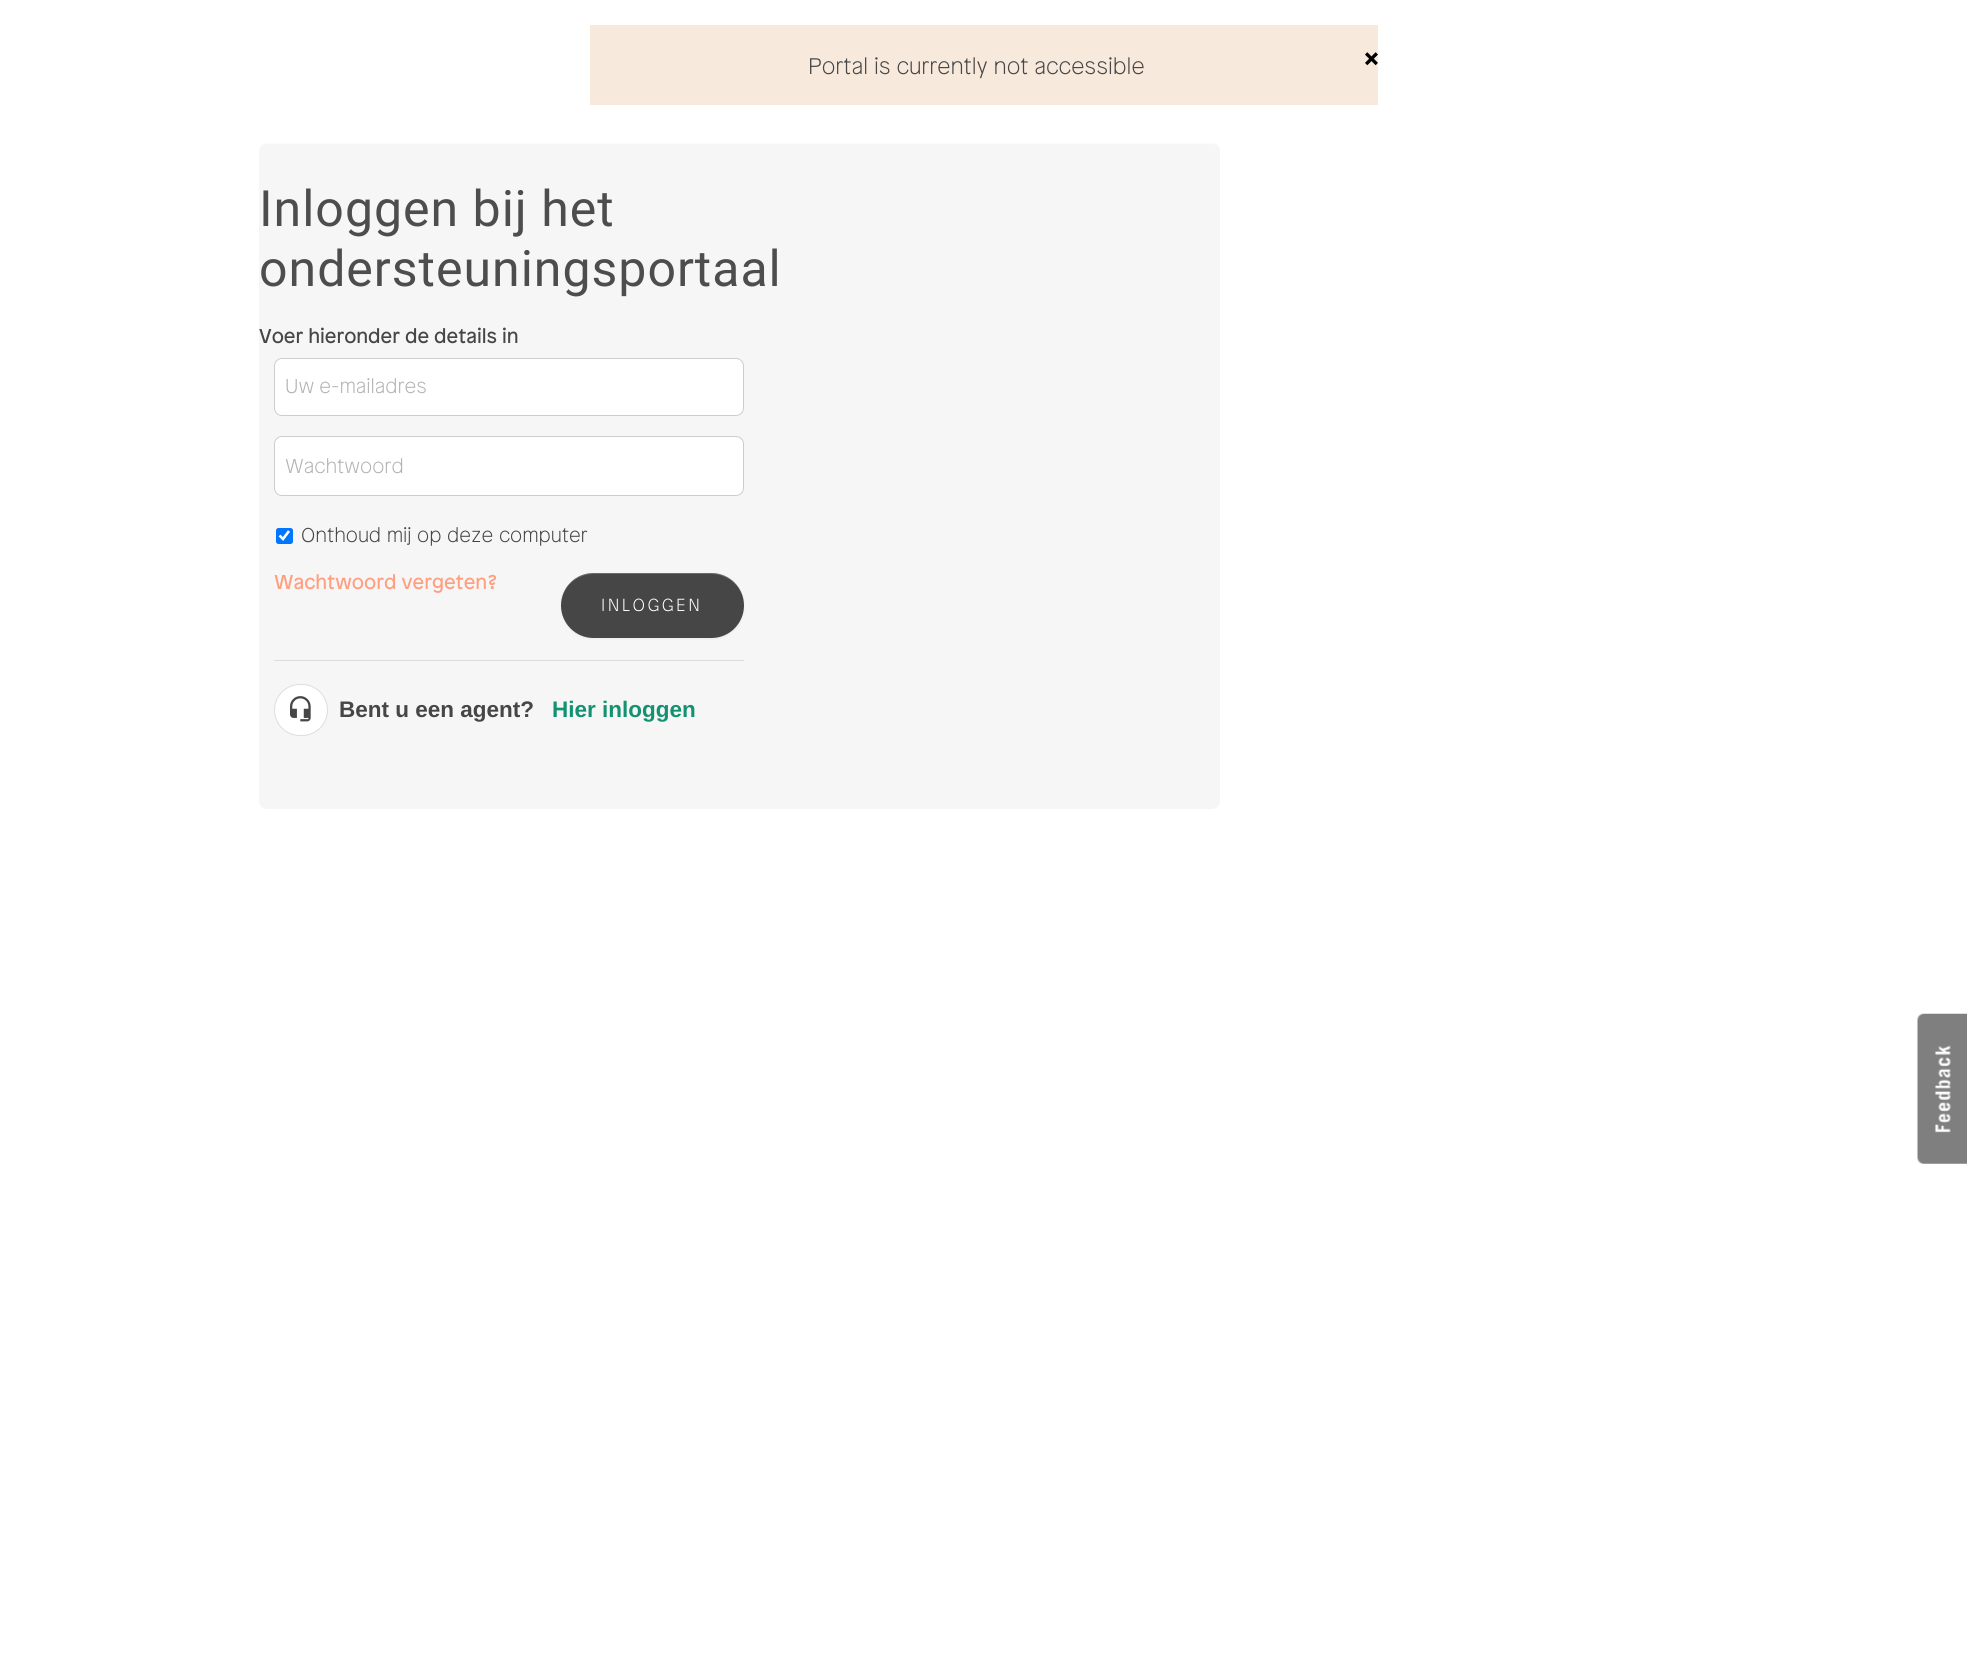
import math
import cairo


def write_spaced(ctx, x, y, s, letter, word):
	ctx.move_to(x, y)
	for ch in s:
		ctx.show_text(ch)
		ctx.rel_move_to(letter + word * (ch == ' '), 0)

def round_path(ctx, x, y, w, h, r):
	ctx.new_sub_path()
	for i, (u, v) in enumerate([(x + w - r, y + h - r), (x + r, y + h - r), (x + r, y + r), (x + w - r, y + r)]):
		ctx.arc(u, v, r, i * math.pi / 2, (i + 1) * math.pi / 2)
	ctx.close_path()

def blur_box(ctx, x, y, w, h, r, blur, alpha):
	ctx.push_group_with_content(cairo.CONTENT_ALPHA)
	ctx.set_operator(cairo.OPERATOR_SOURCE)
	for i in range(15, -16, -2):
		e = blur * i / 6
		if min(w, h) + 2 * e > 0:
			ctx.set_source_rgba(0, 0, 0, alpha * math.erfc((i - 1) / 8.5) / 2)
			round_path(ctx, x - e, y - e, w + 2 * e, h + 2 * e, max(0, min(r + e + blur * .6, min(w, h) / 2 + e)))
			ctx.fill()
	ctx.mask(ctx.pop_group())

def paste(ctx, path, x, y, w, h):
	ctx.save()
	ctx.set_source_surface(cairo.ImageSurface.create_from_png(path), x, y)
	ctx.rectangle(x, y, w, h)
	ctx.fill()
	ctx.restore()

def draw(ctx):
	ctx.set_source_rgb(1, 1, 1)
	ctx.paint()
	ctx.set_source_rgb(0.965, 0.914, 0.863)
	ctx.rectangle(590, 25, 788, 80)
	ctx.fill()
	ctx.select_font_face('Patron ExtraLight')
	ctx.set_font_size(22.5)
	ctx.set_source_rgb(0.275, 0.275, 0.275)
	ctx.move_to(808, 74)
	ctx.show_text('Portal is currently not accessible')
	ctx.select_font_face('Patron', cairo.FONT_SLANT_NORMAL, cairo.FONT_WEIGHT_BOLD)
	ctx.set_font_size(25)
	ctx.set_source_rgb(0, 0, 0)
	ctx.move_to(1364, 68)
	ctx.show_text('×')
	ctx.set_source_rgb(0.961, 0.961, 0.961)
	round_path(ctx, 259, 143, 961, 666, 8)
	ctx.fill()
	ctx.set_source_rgb(0.988, 0.988, 0.988)
	ctx.new_path()
	ctx.move_to(266, 144)
	ctx.line_to(1212, 144)
	ctx.curve_to(1217, 144, 1220, 147, 1220, 151)
	ctx.curve_to(1220, 147, 1216, 143, 1212, 143)
	ctx.line_to(267, 143)
	ctx.curve_to(263, 143, 259, 147, 259, 151)
	ctx.curve_to(259, 147, 262, 144, 266, 144)
	ctx.close_path()
	ctx.fill()
	ctx.select_font_face('Roboto')
	ctx.set_font_size(50)
	ctx.set_source_rgb(0.302, 0.302, 0.302)
	write_spaced(ctx, 259, 226, 'Inloggen bij het', 1, 0)
	write_spaced(ctx, 259, 286, 'ondersteuningsportaal', 1, 0)
	ctx.select_font_face('Patron')
	ctx.set_font_size(20)
	ctx.set_source_rgb(0.275, 0.275, 0.275)
	ctx.move_to(259, 343)
	ctx.show_text('Voer hieronder de details in')
	ctx.set_source_rgb(1, 1, 1)
	round_path(ctx, 274.5, 358.5, 469, 57, 7.5)
	ctx.fill_preserve()
	ctx.set_source_rgb(0.804, 0.804, 0.804)
	ctx.set_line_width(1)
	ctx.stroke()
	ctx.select_font_face('Patron ExtraLight')
	ctx.set_source_rgb(0.698, 0.698, 0.698)
	ctx.move_to(285, 393)
	ctx.show_text('Uw e-mailadres')
	ctx.set_source_rgb(1, 1, 1)
	round_path(ctx, 274.5, 436.5, 469, 59, 7.5)
	ctx.fill_preserve()
	ctx.set_source_rgb(0.804, 0.804, 0.804)
	ctx.stroke()
	ctx.set_source_rgb(0.698, 0.698, 0.698)
	ctx.move_to(285, 473)
	ctx.show_text('Wachtwoord')
	ctx.set_source_rgb(0, 0.459, 1)
	round_path(ctx, 276, 528, 17, 16, 2.5)
	ctx.fill()
	ctx.new_path()
	ctx.move_to(279.5, 535.5)
	ctx.line_to(283, 539)
	ctx.line_to(289, 531)
	ctx.set_source_rgb(1, 1, 1)
	ctx.set_line_width(2.6)
	ctx.stroke()
	ctx.set_source_rgb(0.275, 0.275, 0.275)
	write_spaced(ctx, 301, 542, 'Onthoud mij op deze computer', 0, 0.5)
	ctx.select_font_face('Patron')
	ctx.set_source_rgb(1, 0.624, 0.502)
	ctx.move_to(274, 589)
	ctx.show_text('Wachtwoord vergeten?')
	ctx.set_source_rgb(0, 0, 0)
	blur_box(ctx, 561, 574, 183, 65, 32.5, 1, 0.05)
	ctx.set_source_rgb(0.275, 0.275, 0.275)
	round_path(ctx, 561, 573, 183, 65, 32.5)
	ctx.fill()
	ctx.set_source_rgba(1, 1, 1, 0.2)
	ctx.new_path()
	ctx.move_to(594, 574)
	ctx.line_to(711, 574)
	ctx.curve_to(729, 574, 744, 588, 744, 606)
	ctx.curve_to(744, 588, 729, 573, 712, 573)
	ctx.line_to(594, 573)
	ctx.curve_to(576, 573, 561, 588, 561, 606)
	ctx.curve_to(561, 588, 576, 574, 594, 574)
	ctx.close_path()
	ctx.fill()
	ctx.select_font_face('Patron ExtraLight')
	ctx.set_font_size(17.5)
	ctx.set_source_rgb(1, 1, 1)
	write_spaced(ctx, 601, 611, 'INLOGGEN', 2.5, 0)
	ctx.set_source_rgb(0.867, 0.867, 0.867)
	ctx.rectangle(274, 660, 470, 1)
	ctx.fill()
	ctx.set_source_rgb(1, 1, 1)
	round_path(ctx, 274.5, 684.5, 53, 51, 25.5)
	ctx.fill_preserve()
	ctx.set_source_rgb(0.867, 0.867, 0.867)
	ctx.set_line_width(1)
	ctx.stroke()
	paste(ctx, 'media/1.png', 290, 696, 21, 26)
	ctx.select_font_face('Liberation Sans', cairo.FONT_SLANT_NORMAL, cairo.FONT_WEIGHT_BOLD)
	ctx.set_font_size(22.5)
	ctx.set_source_rgb(0.275, 0.275, 0.275)
	ctx.move_to(339, 717)
	ctx.show_text('Bent u een agent?')
	ctx.set_source_rgb(0.075, 0.573, 0.447)
	ctx.move_to(552, 717)
	ctx.show_text('Hier inloggen')
	paste(ctx, 'media/2.png', 1917, 1013, 50, 151)


surface = cairo.ImageSurface(cairo.FORMAT_RGB24, 1967, 1675)
ctx = cairo.Context(surface)
options = cairo.FontOptions()
options.set_hint_metrics(cairo.HINT_METRICS_OFF)
options.set_hint_style(cairo.HINT_STYLE_NONE)
ctx.set_font_options(options)
ctx.set_miter_limit(4)
draw(ctx)
surface.write_to_png('image.png')
